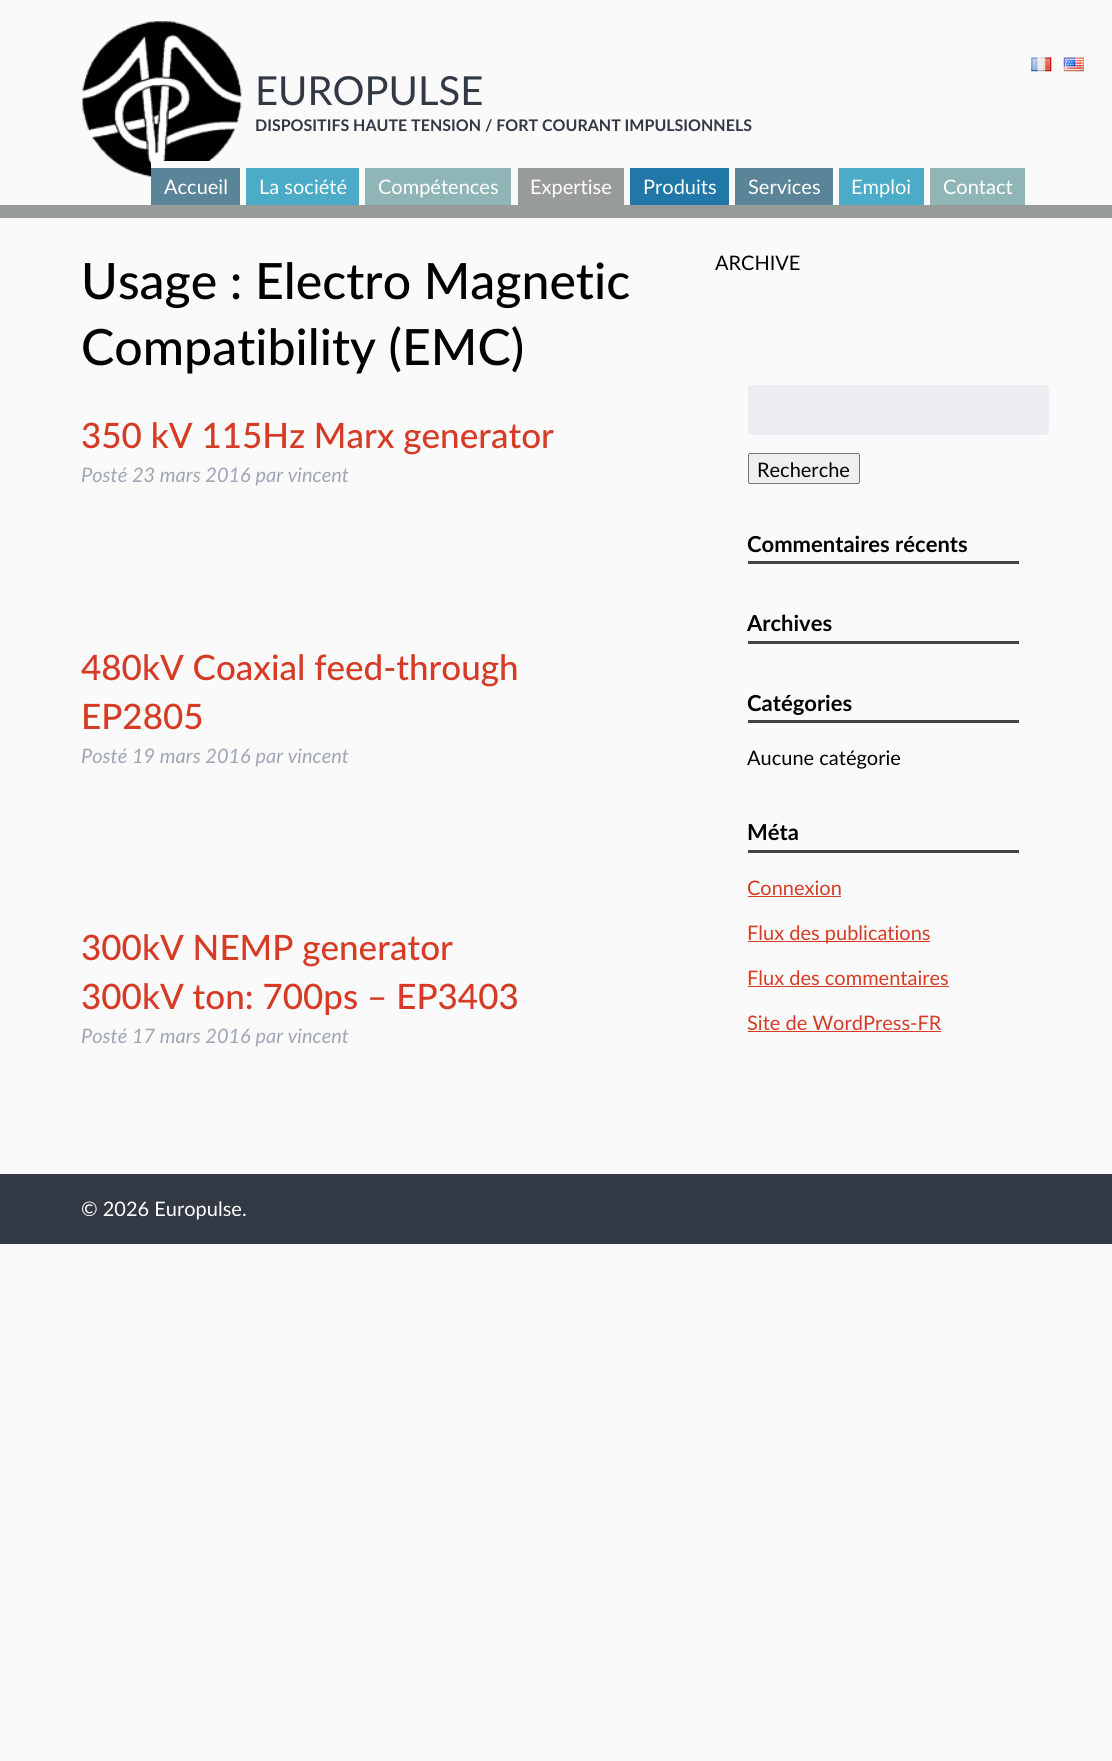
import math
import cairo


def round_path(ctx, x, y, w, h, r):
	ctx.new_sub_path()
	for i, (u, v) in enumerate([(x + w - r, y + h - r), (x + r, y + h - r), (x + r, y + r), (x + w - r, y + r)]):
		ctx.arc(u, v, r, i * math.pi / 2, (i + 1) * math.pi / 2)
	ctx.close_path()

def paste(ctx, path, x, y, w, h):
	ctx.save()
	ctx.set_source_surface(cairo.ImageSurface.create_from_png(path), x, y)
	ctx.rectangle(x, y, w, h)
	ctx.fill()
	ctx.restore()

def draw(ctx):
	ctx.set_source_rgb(0.98, 0.98, 0.98)
	ctx.paint()
	ctx.set_source_rgb(0.592, 0.608, 0.604)
	ctx.rectangle(0, 205, 1112, 13)
	ctx.fill()
	paste(ctx, 'media/1.png', 82, 21, 160, 157)
	paste(ctx, 'media/2.png', 1031, 57, 21, 15)
	paste(ctx, 'media/3.png', 1063, 57, 21, 15)
	ctx.select_font_face('Lato')
	ctx.set_font_size(40)
	ctx.set_source_rgb(0.196, 0.224, 0.267)
	ctx.move_to(255, 105)
	ctx.show_text('EUROPULSE')
	ctx.select_font_face('Lato', cairo.FONT_SLANT_NORMAL, cairo.FONT_WEIGHT_BOLD)
	ctx.set_font_size(16)
	ctx.move_to(255, 131)
	ctx.show_text('DISPOSITIFS HAUTE TENSION / FORT COURANT IMPULSIONNELS')
	ctx.set_source_rgb(0.353, 0.518, 0.592)
	ctx.rectangle(151, 168, 89, 37)
	ctx.fill()
	ctx.set_source_rgb(0.98, 0.98, 0.98)
	ctx.rectangle(151, 161, 60, 7)
	ctx.fill()
	ctx.select_font_face('Lato')
	ctx.set_font_size(20)
	ctx.set_source_rgb(1, 1, 1)
	ctx.move_to(164, 194)
	ctx.show_text('Accueil')
	ctx.set_source_rgb(0.298, 0.671, 0.776)
	ctx.rectangle(246, 168, 113, 37)
	ctx.fill()
	ctx.set_source_rgb(1, 1, 1)
	ctx.move_to(259, 194)
	ctx.show_text('La société')
	ctx.set_source_rgb(0.565, 0.71, 0.718)
	ctx.rectangle(365, 168, 146, 37)
	ctx.fill()
	ctx.set_source_rgb(1, 1, 1)
	ctx.move_to(378, 194)
	ctx.show_text('Compétences')
	ctx.set_source_rgb(0.592, 0.608, 0.604)
	ctx.rectangle(518, 168, 106, 37)
	ctx.fill()
	ctx.set_source_rgb(1, 1, 1)
	ctx.move_to(530, 194)
	ctx.show_text('Expertise')
	ctx.set_source_rgb(0.129, 0.467, 0.659)
	ctx.rectangle(630, 168, 99, 37)
	ctx.fill()
	ctx.set_source_rgb(1, 1, 1)
	ctx.move_to(643, 194)
	ctx.show_text('Produits')
	ctx.set_source_rgb(0.353, 0.518, 0.592)
	ctx.rectangle(735, 168, 98, 37)
	ctx.fill()
	ctx.set_source_rgb(1, 1, 1)
	ctx.move_to(748, 194)
	ctx.show_text('Services')
	ctx.set_source_rgb(0.298, 0.671, 0.776)
	ctx.rectangle(839, 168, 85, 37)
	ctx.fill()
	ctx.set_source_rgb(1, 1, 1)
	ctx.move_to(851, 194)
	ctx.show_text('Emploi')
	ctx.set_source_rgb(0.565, 0.71, 0.718)
	ctx.rectangle(930, 168, 95, 37)
	ctx.fill()
	ctx.set_source_rgb(1, 1, 1)
	ctx.move_to(943, 194)
	ctx.show_text('Contact')
	ctx.select_font_face('Lato Medium')
	ctx.set_font_size(50)
	ctx.set_source_rgb(0.004, 0.004, 0.004)
	ctx.move_to(81, 299)
	ctx.show_text('Usage : Electro Magnetic')
	ctx.move_to(81, 365)
	ctx.show_text('Compatibility (EMC)')
	ctx.set_font_size(35)
	ctx.set_source_rgb(0.839, 0.231, 0.145)
	ctx.move_to(81, 448)
	ctx.show_text('350 kV 115Hz Marx generator')
	ctx.select_font_face('Lato', cairo.FONT_SLANT_ITALIC)
	ctx.set_font_size(20)
	ctx.set_source_rgb(0.624, 0.651, 0.706)
	ctx.move_to(81, 482)
	ctx.show_text('Posté 23 mars 2016 par vincent')
	ctx.select_font_face('Lato Medium')
	ctx.set_font_size(35)
	ctx.set_source_rgb(0.839, 0.231, 0.145)
	ctx.move_to(81, 680)
	ctx.show_text('480kV Coaxial feed-through')
	ctx.move_to(81, 729)
	ctx.show_text('EP2805')
	ctx.select_font_face('Lato', cairo.FONT_SLANT_ITALIC)
	ctx.set_font_size(20)
	ctx.set_source_rgb(0.624, 0.651, 0.706)
	ctx.move_to(81, 763)
	ctx.show_text('Posté 19 mars 2016 par vincent')
	ctx.select_font_face('Lato Medium')
	ctx.set_font_size(35)
	ctx.set_source_rgb(0.839, 0.231, 0.145)
	ctx.move_to(81, 960)
	ctx.show_text('300kV NEMP generator')
	ctx.move_to(81, 1009)
	ctx.show_text('300kV ton: 700ps – EP3403')
	ctx.select_font_face('Lato', cairo.FONT_SLANT_ITALIC)
	ctx.set_font_size(20)
	ctx.set_source_rgb(0.624, 0.651, 0.706)
	ctx.move_to(81, 1043)
	ctx.show_text('Posté 17 mars 2016 par vincent')
	ctx.select_font_face('Lato')
	ctx.set_source_rgb(0.004, 0.004, 0.004)
	ctx.move_to(715, 270)
	ctx.show_text('ARCHIVE')
	ctx.set_source_rgb(0.918, 0.929, 0.949)
	round_path(ctx, 748, 385, 301, 50, 4)
	ctx.fill()
	ctx.set_source_rgb(0.937, 0.937, 0.937)
	round_path(ctx, 748.5, 453.5, 111, 30, 2)
	ctx.fill_preserve()
	ctx.set_source_rgb(0.463, 0.463, 0.463)
	ctx.set_line_width(1)
	ctx.stroke()
	ctx.set_source_rgb(0.004, 0.004, 0.004)
	ctx.move_to(757, 477)
	ctx.show_text('Recherche')
	ctx.set_source_rgb(0.267, 0.267, 0.267)
	ctx.rectangle(748, 561, 271, 3)
	ctx.fill()
	ctx.select_font_face('Lato', cairo.FONT_SLANT_NORMAL, cairo.FONT_WEIGHT_BOLD)
	ctx.set_font_size(22)
	ctx.set_source_rgb(0.004, 0.004, 0.004)
	ctx.move_to(747, 552)
	ctx.show_text('Commentaires récents')
	ctx.set_source_rgb(0.267, 0.267, 0.267)
	ctx.rectangle(748, 641, 271, 3)
	ctx.fill()
	ctx.set_source_rgb(0.004, 0.004, 0.004)
	ctx.move_to(747, 631)
	ctx.show_text('Archives')
	ctx.set_source_rgb(0.267, 0.267, 0.267)
	ctx.rectangle(748, 720, 271, 3)
	ctx.fill()
	ctx.set_source_rgb(0.004, 0.004, 0.004)
	ctx.move_to(747, 711)
	ctx.show_text('Catégories')
	ctx.select_font_face('Lato')
	ctx.set_font_size(20)
	ctx.move_to(747, 765)
	ctx.show_text('Aucune catégorie')
	ctx.set_source_rgb(0.267, 0.267, 0.267)
	ctx.rectangle(748, 850, 271, 3)
	ctx.fill()
	ctx.select_font_face('Lato', cairo.FONT_SLANT_NORMAL, cairo.FONT_WEIGHT_BOLD)
	ctx.set_font_size(22)
	ctx.set_source_rgb(0.004, 0.004, 0.004)
	ctx.move_to(747, 840)
	ctx.show_text('Méta')
	ctx.select_font_face('Lato')
	ctx.set_font_size(20)
	ctx.set_source_rgb(0.839, 0.231, 0.145)
	ctx.move_to(747, 895)
	ctx.show_text('Connexion')
	ctx.rectangle(748, 896, 93, 1)
	ctx.fill()
	ctx.rectangle(748, 941, 182, 1)
	ctx.fill()
	ctx.move_to(747, 940)
	ctx.show_text('Flux des publications')
	ctx.move_to(747, 985)
	ctx.show_text('Flux des commentaires')
	ctx.rectangle(748, 986, 201, 1)
	ctx.fill()
	ctx.move_to(747, 1030)
	ctx.show_text('Site de WordPress-FR')
	ctx.rectangle(748, 1031, 193, 1)
	ctx.fill()
	ctx.set_source_rgb(0.196, 0.224, 0.267)
	ctx.rectangle(0, 1174, 1112, 70)
	ctx.fill()
	ctx.set_source_rgb(1, 1, 1)
	ctx.move_to(81, 1216)
	ctx.show_text('© 2026 Europulse.')


surface = cairo.ImageSurface(cairo.FORMAT_RGB24, 1112, 1761)
ctx = cairo.Context(surface)
options = cairo.FontOptions()
options.set_hint_metrics(cairo.HINT_METRICS_OFF)
options.set_hint_style(cairo.HINT_STYLE_NONE)
ctx.set_font_options(options)
ctx.set_miter_limit(4)
draw(ctx)
surface.write_to_png('image.png')
